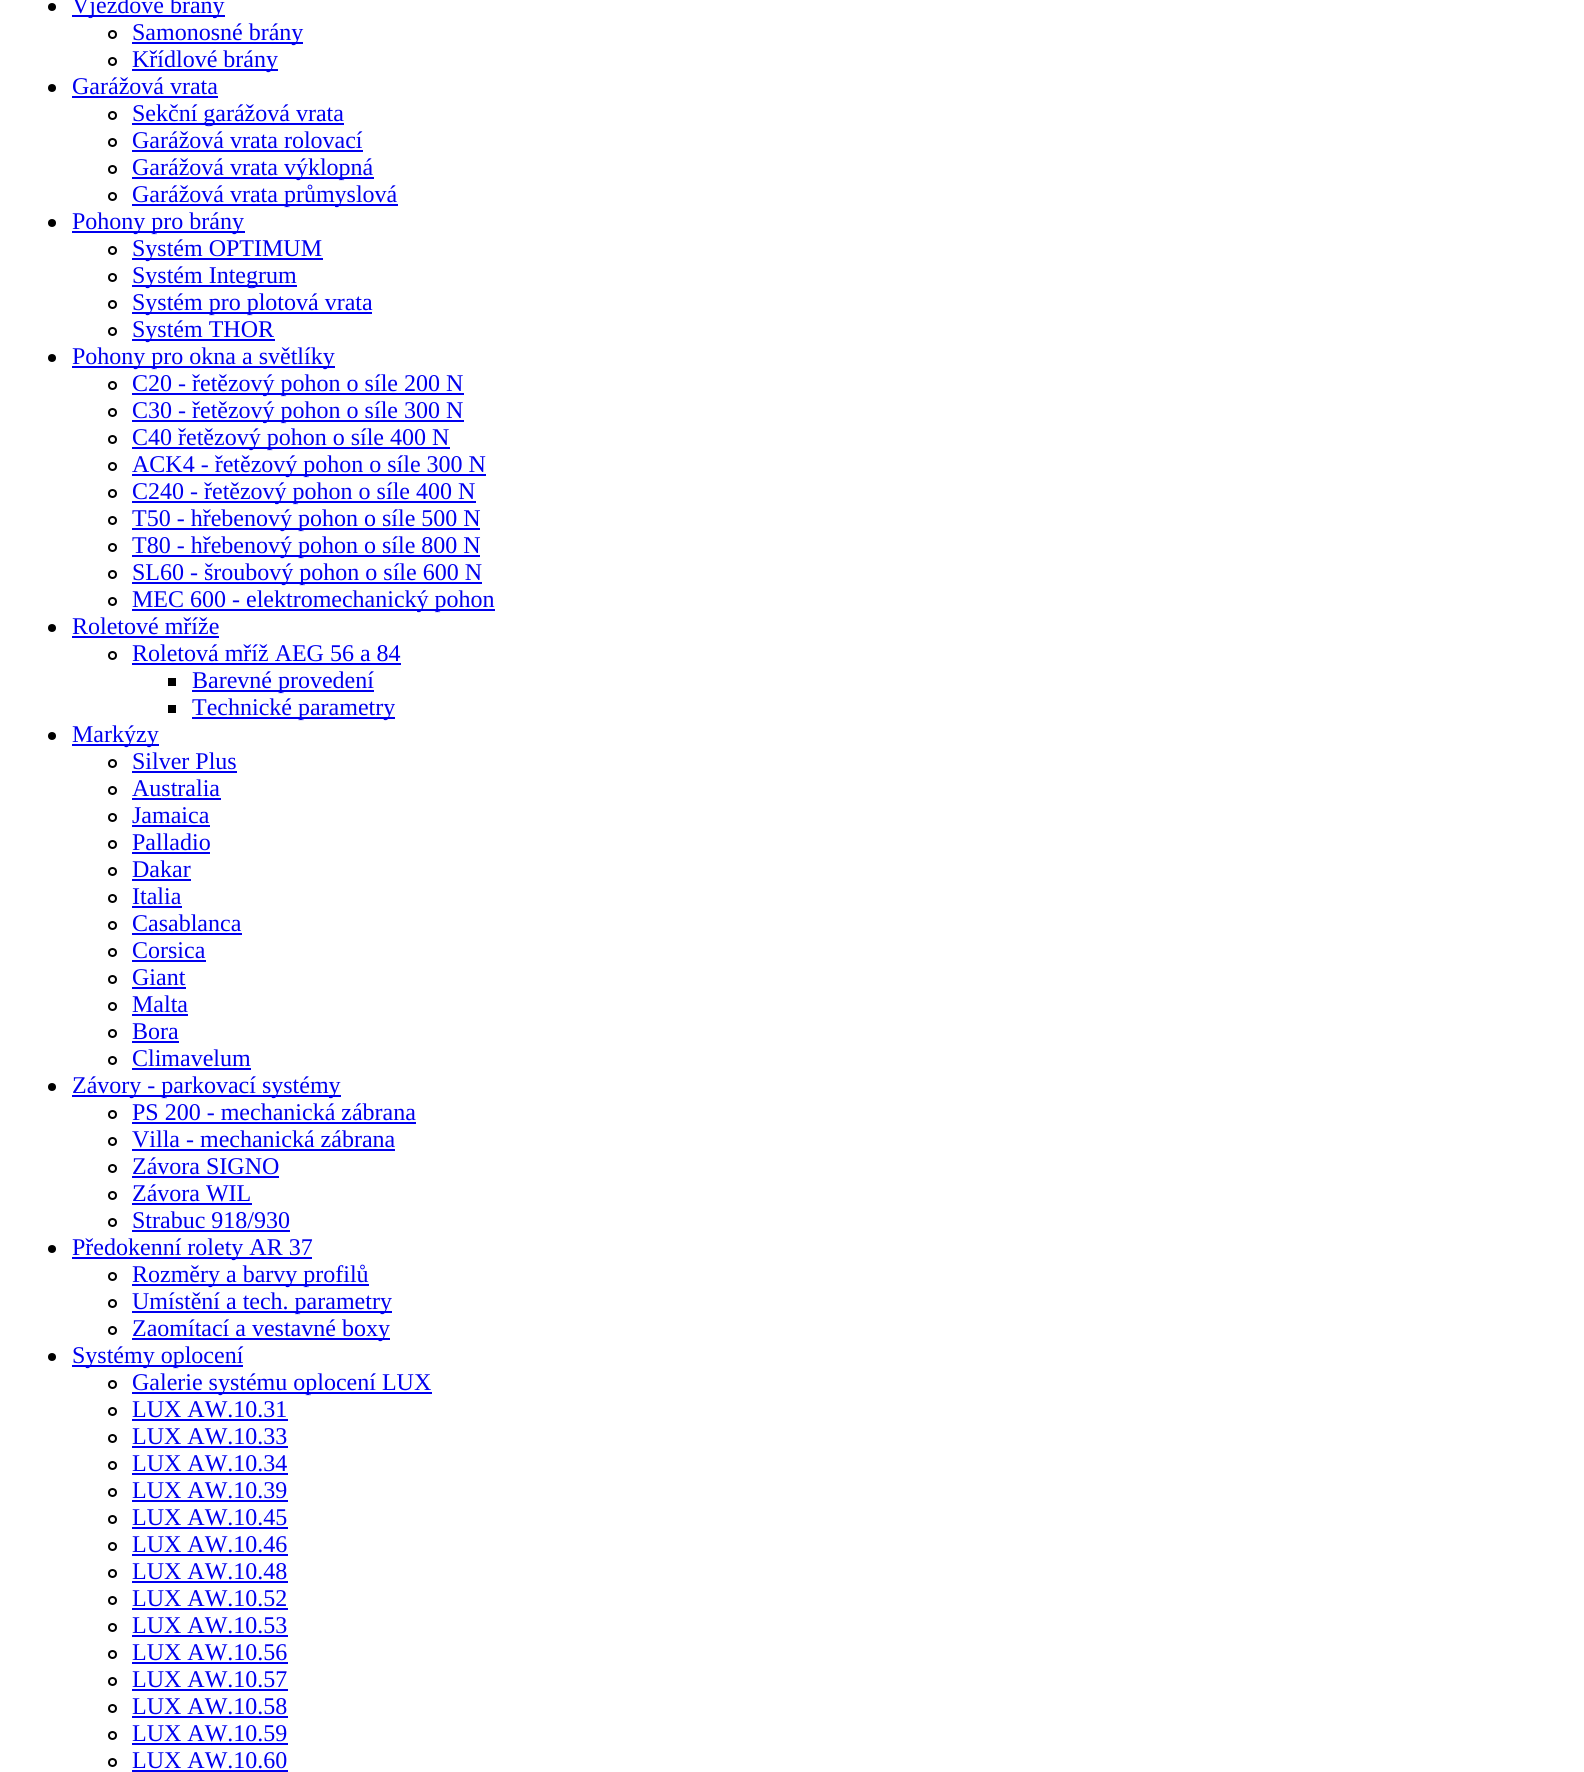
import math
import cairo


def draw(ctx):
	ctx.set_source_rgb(1, 1, 1)
	ctx.paint()
	ctx.set_source_rgb(0, 0, 0)
	ctx.arc(52, 7, 4, 0, 2 * math.pi)
	ctx.fill()
	ctx.set_source_rgb(0, 0, 0.933)
	ctx.rectangle(72, 15, 153, 2)
	ctx.fill()
	ctx.select_font_face('Liberation Serif')
	ctx.set_font_size(24)
	ctx.move_to(72, 13)
	ctx.show_text('Vjezdové brány')
	ctx.new_path()
	ctx.arc(112.5, 34.5, 3.5, 0, 2 * math.pi)
	ctx.set_source_rgb(0, 0, 0)
	ctx.stroke()
	ctx.set_source_rgb(0, 0, 0.933)
	ctx.rectangle(132, 42, 171, 2)
	ctx.fill()
	ctx.move_to(132, 40)
	ctx.show_text('Samonosné brány')
	ctx.new_path()
	ctx.arc(112.5, 61.5, 3.5, 0, 2 * math.pi)
	ctx.set_source_rgb(0, 0, 0)
	ctx.stroke()
	ctx.set_source_rgb(0, 0, 0.933)
	ctx.rectangle(132, 69, 146, 2)
	ctx.fill()
	ctx.move_to(132, 67)
	ctx.show_text('Křídlové brány')
	ctx.set_source_rgb(0, 0, 0)
	ctx.new_path()
	ctx.arc(52, 88, 4, 0, 2 * math.pi)
	ctx.fill()
	ctx.set_source_rgb(0, 0, 0.933)
	ctx.move_to(72, 94)
	ctx.show_text('Garážová vrata')
	ctx.rectangle(72, 96, 146, 2)
	ctx.fill()
	ctx.arc(112.5, 115.5, 3.5, 0, 2 * math.pi)
	ctx.set_source_rgb(0, 0, 0)
	ctx.stroke()
	ctx.set_source_rgb(0, 0, 0.933)
	ctx.rectangle(132, 123, 212, 2)
	ctx.fill()
	ctx.move_to(132, 121)
	ctx.show_text('Sekční garážová vrata')
	ctx.new_path()
	ctx.arc(112.5, 142.5, 3.5, 0, 2 * math.pi)
	ctx.set_source_rgb(0, 0, 0)
	ctx.stroke()
	ctx.set_source_rgb(0, 0, 0.933)
	ctx.move_to(132, 148)
	ctx.show_text('Garážová vrata rolovací')
	ctx.rectangle(132, 150, 231, 2)
	ctx.fill()
	ctx.arc(112.5, 169.5, 3.5, 0, 2 * math.pi)
	ctx.set_source_rgb(0, 0, 0)
	ctx.stroke()
	ctx.set_source_rgb(0, 0, 0.933)
	ctx.rectangle(132, 177, 242, 2)
	ctx.fill()
	ctx.move_to(132, 175)
	ctx.show_text('Garážová vrata výklopná')
	ctx.new_path()
	ctx.arc(112.5, 196.5, 3.5, 0, 2 * math.pi)
	ctx.set_source_rgb(0, 0, 0)
	ctx.stroke()
	ctx.set_source_rgb(0, 0, 0.933)
	ctx.rectangle(132, 204, 266, 2)
	ctx.fill()
	ctx.move_to(132, 202)
	ctx.show_text('Garážová vrata průmyslová')
	ctx.set_source_rgb(0, 0, 0)
	ctx.new_path()
	ctx.arc(52, 223, 4, 0, 2 * math.pi)
	ctx.fill()
	ctx.set_source_rgb(0, 0, 0.933)
	ctx.rectangle(72, 231, 173, 2)
	ctx.fill()
	ctx.move_to(72, 229)
	ctx.show_text('Pohony pro brány')
	ctx.new_path()
	ctx.arc(112.5, 250.5, 3.5, 0, 2 * math.pi)
	ctx.set_source_rgb(0, 0, 0)
	ctx.stroke()
	ctx.set_source_rgb(0, 0, 0.933)
	ctx.rectangle(132, 258, 191, 2)
	ctx.fill()
	ctx.move_to(132, 256)
	ctx.show_text('Systém OPTIMUM')
	ctx.new_path()
	ctx.arc(112.5, 277.5, 3.5, 0, 2 * math.pi)
	ctx.set_source_rgb(0, 0, 0)
	ctx.stroke()
	ctx.set_source_rgb(0, 0, 0.933)
	ctx.rectangle(132, 285, 165, 2)
	ctx.fill()
	ctx.move_to(132, 283)
	ctx.show_text('Systém Integrum')
	ctx.new_path()
	ctx.arc(112.5, 304.5, 3.5, 0, 2 * math.pi)
	ctx.set_source_rgb(0, 0, 0)
	ctx.stroke()
	ctx.set_source_rgb(0, 0, 0.933)
	ctx.rectangle(132, 312, 240, 2)
	ctx.fill()
	ctx.move_to(132, 310)
	ctx.show_text('Systém pro plotová vrata')
	ctx.new_path()
	ctx.arc(112.5, 331.5, 3.5, 0, 2 * math.pi)
	ctx.set_source_rgb(0, 0, 0)
	ctx.stroke()
	ctx.set_source_rgb(0, 0, 0.933)
	ctx.rectangle(132, 339, 143, 2)
	ctx.fill()
	ctx.move_to(132, 337)
	ctx.show_text('Systém THOR')
	ctx.set_source_rgb(0, 0, 0)
	ctx.new_path()
	ctx.arc(52, 358, 4, 0, 2 * math.pi)
	ctx.fill()
	ctx.set_source_rgb(0, 0, 0.933)
	ctx.rectangle(72, 366, 263, 2)
	ctx.fill()
	ctx.move_to(72, 364)
	ctx.show_text('Pohony pro okna a světlíky')
	ctx.new_path()
	ctx.arc(112.5, 385.5, 3.5, 0, 2 * math.pi)
	ctx.set_source_rgb(0, 0, 0)
	ctx.stroke()
	ctx.set_source_rgb(0, 0, 0.933)
	ctx.rectangle(132, 393, 332, 2)
	ctx.fill()
	ctx.move_to(132, 391)
	ctx.show_text('C20 - řetězový pohon o síle 200 N')
	ctx.new_path()
	ctx.arc(112.5, 412.5, 3.5, 0, 2 * math.pi)
	ctx.set_source_rgb(0, 0, 0)
	ctx.stroke()
	ctx.set_source_rgb(0, 0, 0.933)
	ctx.rectangle(132, 420, 332, 2)
	ctx.fill()
	ctx.move_to(132, 418)
	ctx.show_text('C30 - řetězový pohon o síle 300 N')
	ctx.new_path()
	ctx.arc(112.5, 439.5, 3.5, 0, 2 * math.pi)
	ctx.set_source_rgb(0, 0, 0)
	ctx.stroke()
	ctx.set_source_rgb(0, 0, 0.933)
	ctx.rectangle(132, 447, 318, 2)
	ctx.fill()
	ctx.move_to(132, 445)
	ctx.show_text('C40 řetězový pohon o síle 400 N')
	ctx.new_path()
	ctx.arc(112.5, 466.5, 3.5, 0, 2 * math.pi)
	ctx.set_source_rgb(0, 0, 0)
	ctx.stroke()
	ctx.set_source_rgb(0, 0, 0.933)
	ctx.rectangle(132, 474, 354, 2)
	ctx.fill()
	ctx.move_to(132, 472)
	ctx.show_text('ACK4 - řetězový pohon o síle 300 N')
	ctx.new_path()
	ctx.arc(112.5, 493.5, 3.5, 0, 2 * math.pi)
	ctx.set_source_rgb(0, 0, 0)
	ctx.stroke()
	ctx.set_source_rgb(0, 0, 0.933)
	ctx.rectangle(132, 501, 344, 2)
	ctx.fill()
	ctx.move_to(132, 499)
	ctx.show_text('C240 - řetězový pohon o síle 400 N')
	ctx.new_path()
	ctx.arc(112.5, 520.5, 3.5, 0, 2 * math.pi)
	ctx.set_source_rgb(0, 0, 0)
	ctx.stroke()
	ctx.set_source_rgb(0, 0, 0.933)
	ctx.rectangle(132, 528, 348, 2)
	ctx.fill()
	ctx.move_to(132, 526)
	ctx.show_text('T50 - hřebenový pohon o síle 500 N')
	ctx.new_path()
	ctx.arc(112.5, 547.5, 3.5, 0, 2 * math.pi)
	ctx.set_source_rgb(0, 0, 0)
	ctx.stroke()
	ctx.set_source_rgb(0, 0, 0.933)
	ctx.rectangle(132, 555, 348, 2)
	ctx.fill()
	ctx.move_to(132, 553)
	ctx.show_text('T80 - hřebenový pohon o síle 800 N')
	ctx.new_path()
	ctx.arc(112.5, 574.5, 3.5, 0, 2 * math.pi)
	ctx.set_source_rgb(0, 0, 0)
	ctx.stroke()
	ctx.set_source_rgb(0, 0, 0.933)
	ctx.rectangle(132, 582, 350, 2)
	ctx.fill()
	ctx.move_to(132, 580)
	ctx.show_text('SL60 - šroubový pohon o síle 600 N')
	ctx.new_path()
	ctx.arc(112.5, 601.5, 3.5, 0, 2 * math.pi)
	ctx.set_source_rgb(0, 0, 0)
	ctx.stroke()
	ctx.set_source_rgb(0, 0, 0.933)
	ctx.rectangle(132, 609, 363, 2)
	ctx.fill()
	ctx.move_to(132, 607)
	ctx.show_text('MEC 600 - elektromechanický pohon')
	ctx.set_source_rgb(0, 0, 0)
	ctx.new_path()
	ctx.arc(52, 628, 4, 0, 2 * math.pi)
	ctx.fill()
	ctx.set_source_rgb(0, 0, 0.933)
	ctx.move_to(72, 634)
	ctx.show_text('Roletové mříže')
	ctx.rectangle(72, 636, 147, 2)
	ctx.fill()
	ctx.arc(112.5, 655.5, 3.5, 0, 2 * math.pi)
	ctx.set_source_rgb(0, 0, 0)
	ctx.stroke()
	ctx.set_source_rgb(0, 0, 0.933)
	ctx.move_to(132, 661)
	ctx.show_text('Roletová mříž AEG 56 a 84')
	ctx.rectangle(132, 663, 269, 2)
	ctx.fill()
	ctx.set_source_rgb(0, 0, 0)
	ctx.rectangle(168, 678, 8, 8)
	ctx.fill()
	ctx.set_source_rgb(0, 0, 0.933)
	ctx.rectangle(192, 690, 182, 2)
	ctx.fill()
	ctx.move_to(192, 688)
	ctx.show_text('Barevné provedení')
	ctx.set_source_rgb(0, 0, 0)
	ctx.rectangle(168, 705, 8, 8)
	ctx.fill()
	ctx.set_source_rgb(0, 0, 0.933)
	ctx.rectangle(192, 717, 203, 2)
	ctx.fill()
	ctx.move_to(192, 715)
	ctx.show_text('Technické parametry')
	ctx.set_source_rgb(0, 0, 0)
	ctx.new_path()
	ctx.arc(52, 736, 4, 0, 2 * math.pi)
	ctx.fill()
	ctx.set_source_rgb(0, 0, 0.933)
	ctx.rectangle(72, 744, 87, 2)
	ctx.fill()
	ctx.move_to(72, 742)
	ctx.show_text('Markýzy')
	ctx.new_path()
	ctx.arc(112.5, 763.5, 3.5, 0, 2 * math.pi)
	ctx.set_source_rgb(0, 0, 0)
	ctx.stroke()
	ctx.set_source_rgb(0, 0, 0.933)
	ctx.move_to(132, 769)
	ctx.show_text('Silver Plus')
	ctx.rectangle(132, 771, 105, 2)
	ctx.fill()
	ctx.arc(112.5, 790.5, 3.5, 0, 2 * math.pi)
	ctx.set_source_rgb(0, 0, 0)
	ctx.stroke()
	ctx.set_source_rgb(0, 0, 0.933)
	ctx.move_to(132, 796)
	ctx.show_text('Australia')
	ctx.rectangle(132, 798, 89, 2)
	ctx.fill()
	ctx.arc(112.5, 817.5, 3.5, 0, 2 * math.pi)
	ctx.set_source_rgb(0, 0, 0)
	ctx.stroke()
	ctx.set_source_rgb(0, 0, 0.933)
	ctx.move_to(132, 823)
	ctx.show_text('Jamaica')
	ctx.rectangle(132, 825, 78, 2)
	ctx.fill()
	ctx.arc(112.5, 844.5, 3.5, 0, 2 * math.pi)
	ctx.set_source_rgb(0, 0, 0)
	ctx.stroke()
	ctx.set_source_rgb(0, 0, 0.933)
	ctx.move_to(132, 850)
	ctx.show_text('Palladio')
	ctx.rectangle(132, 852, 78, 2)
	ctx.fill()
	ctx.arc(112.5, 871.5, 3.5, 0, 2 * math.pi)
	ctx.set_source_rgb(0, 0, 0)
	ctx.stroke()
	ctx.set_source_rgb(0, 0, 0.933)
	ctx.move_to(132, 877)
	ctx.show_text('Dakar')
	ctx.rectangle(132, 879, 59, 2)
	ctx.fill()
	ctx.arc(112.5, 898.5, 3.5, 0, 2 * math.pi)
	ctx.set_source_rgb(0, 0, 0)
	ctx.stroke()
	ctx.set_source_rgb(0, 0, 0.933)
	ctx.move_to(132, 904)
	ctx.show_text('Italia')
	ctx.rectangle(132, 906, 50, 2)
	ctx.fill()
	ctx.arc(112.5, 925.5, 3.5, 0, 2 * math.pi)
	ctx.set_source_rgb(0, 0, 0)
	ctx.stroke()
	ctx.set_source_rgb(0, 0, 0.933)
	ctx.move_to(132, 931)
	ctx.show_text('Casablanca')
	ctx.rectangle(132, 933, 110, 2)
	ctx.fill()
	ctx.arc(112.5, 952.5, 3.5, 0, 2 * math.pi)
	ctx.set_source_rgb(0, 0, 0)
	ctx.stroke()
	ctx.set_source_rgb(0, 0, 0.933)
	ctx.move_to(132, 958)
	ctx.show_text('Corsica')
	ctx.rectangle(132, 960, 74, 2)
	ctx.fill()
	ctx.arc(112.5, 979.5, 3.5, 0, 2 * math.pi)
	ctx.set_source_rgb(0, 0, 0)
	ctx.stroke()
	ctx.set_source_rgb(0, 0, 0.933)
	ctx.move_to(132, 985)
	ctx.show_text('Giant')
	ctx.rectangle(132, 987, 54, 2)
	ctx.fill()
	ctx.arc(112.5, 1006.5, 3.5, 0, 2 * math.pi)
	ctx.set_source_rgb(0, 0, 0)
	ctx.stroke()
	ctx.set_source_rgb(0, 0, 0.933)
	ctx.move_to(132, 1012)
	ctx.show_text('Malta')
	ctx.rectangle(132, 1014, 56, 2)
	ctx.fill()
	ctx.arc(112.5, 1033.5, 3.5, 0, 2 * math.pi)
	ctx.set_source_rgb(0, 0, 0)
	ctx.stroke()
	ctx.set_source_rgb(0, 0, 0.933)
	ctx.move_to(132, 1039)
	ctx.show_text('Bora')
	ctx.rectangle(132, 1041, 47, 2)
	ctx.fill()
	ctx.arc(112.5, 1060.5, 3.5, 0, 2 * math.pi)
	ctx.set_source_rgb(0, 0, 0)
	ctx.stroke()
	ctx.set_source_rgb(0, 0, 0.933)
	ctx.move_to(132, 1066)
	ctx.show_text('Climavelum')
	ctx.rectangle(132, 1068, 119, 2)
	ctx.fill()
	ctx.set_source_rgb(0, 0, 0)
	ctx.arc(52, 1087, 4, 0, 2 * math.pi)
	ctx.fill()
	ctx.set_source_rgb(0, 0, 0.933)
	ctx.rectangle(72, 1095, 269, 2)
	ctx.fill()
	ctx.move_to(72, 1093)
	ctx.show_text('Závory - parkovací systémy')
	ctx.new_path()
	ctx.arc(112.5, 1114.5, 3.5, 0, 2 * math.pi)
	ctx.set_source_rgb(0, 0, 0)
	ctx.stroke()
	ctx.set_source_rgb(0, 0, 0.933)
	ctx.move_to(132, 1120)
	ctx.show_text('PS 200 - mechanická zábrana')
	ctx.rectangle(132, 1122, 284, 2)
	ctx.fill()
	ctx.arc(112.5, 1141.5, 3.5, 0, 2 * math.pi)
	ctx.set_source_rgb(0, 0, 0)
	ctx.stroke()
	ctx.set_source_rgb(0, 0, 0.933)
	ctx.move_to(132, 1147)
	ctx.show_text('Villa - mechanická zábrana')
	ctx.rectangle(132, 1149, 263, 2)
	ctx.fill()
	ctx.arc(112.5, 1168.5, 3.5, 0, 2 * math.pi)
	ctx.set_source_rgb(0, 0, 0)
	ctx.stroke()
	ctx.set_source_rgb(0, 0, 0.933)
	ctx.move_to(132, 1174)
	ctx.show_text('Závora SIGNO')
	ctx.rectangle(132, 1176, 147, 2)
	ctx.fill()
	ctx.arc(112.5, 1195.5, 3.5, 0, 2 * math.pi)
	ctx.set_source_rgb(0, 0, 0)
	ctx.stroke()
	ctx.set_source_rgb(0, 0, 0.933)
	ctx.move_to(132, 1201)
	ctx.show_text('Závora WIL')
	ctx.rectangle(132, 1203, 120, 2)
	ctx.fill()
	ctx.arc(112.5, 1222.5, 3.5, 0, 2 * math.pi)
	ctx.set_source_rgb(0, 0, 0)
	ctx.stroke()
	ctx.set_source_rgb(0, 0, 0.933)
	ctx.move_to(132, 1228)
	ctx.show_text('Strabuc 918/930')
	ctx.rectangle(132, 1230, 158, 2)
	ctx.fill()
	ctx.set_source_rgb(0, 0, 0)
	ctx.arc(52, 1249, 4, 0, 2 * math.pi)
	ctx.fill()
	ctx.set_source_rgb(0, 0, 0.933)
	ctx.rectangle(72, 1257, 240, 2)
	ctx.fill()
	ctx.move_to(72, 1255)
	ctx.show_text('Předokenní rolety AR 37')
	ctx.new_path()
	ctx.arc(112.5, 1276.5, 3.5, 0, 2 * math.pi)
	ctx.set_source_rgb(0, 0, 0)
	ctx.stroke()
	ctx.set_source_rgb(0, 0, 0.933)
	ctx.rectangle(132, 1284, 237, 2)
	ctx.fill()
	ctx.move_to(132, 1282)
	ctx.show_text('Rozměry a barvy profilů')
	ctx.new_path()
	ctx.arc(112.5, 1303.5, 3.5, 0, 2 * math.pi)
	ctx.set_source_rgb(0, 0, 0)
	ctx.stroke()
	ctx.set_source_rgb(0, 0, 0.933)
	ctx.rectangle(132, 1311, 260, 2)
	ctx.fill()
	ctx.move_to(132, 1309)
	ctx.show_text('Umístění a tech. parametry')
	ctx.new_path()
	ctx.arc(112.5, 1330.5, 3.5, 0, 2 * math.pi)
	ctx.set_source_rgb(0, 0, 0)
	ctx.stroke()
	ctx.set_source_rgb(0, 0, 0.933)
	ctx.rectangle(132, 1338, 258, 2)
	ctx.fill()
	ctx.move_to(132, 1336)
	ctx.show_text('Zaomítací a vestavné boxy')
	ctx.set_source_rgb(0, 0, 0)
	ctx.new_path()
	ctx.arc(52, 1357, 4, 0, 2 * math.pi)
	ctx.fill()
	ctx.set_source_rgb(0, 0, 0.933)
	ctx.rectangle(72, 1365, 171, 2)
	ctx.fill()
	ctx.move_to(72, 1363)
	ctx.show_text('Systémy oplocení')
	ctx.new_path()
	ctx.arc(112.5, 1384.5, 3.5, 0, 2 * math.pi)
	ctx.set_source_rgb(0, 0, 0)
	ctx.stroke()
	ctx.set_source_rgb(0, 0, 0.933)
	ctx.rectangle(132, 1392, 300, 2)
	ctx.fill()
	ctx.move_to(132, 1390)
	ctx.show_text('Galerie systému oplocení LUX')
	ctx.new_path()
	ctx.arc(112.5, 1411.5, 3.5, 0, 2 * math.pi)
	ctx.set_source_rgb(0, 0, 0)
	ctx.stroke()
	ctx.set_source_rgb(0, 0, 0.933)
	ctx.move_to(132, 1417)
	ctx.show_text('LUX AW.10.31')
	ctx.rectangle(132, 1419, 156, 2)
	ctx.fill()
	ctx.arc(112.5, 1438.5, 3.5, 0, 2 * math.pi)
	ctx.set_source_rgb(0, 0, 0)
	ctx.stroke()
	ctx.set_source_rgb(0, 0, 0.933)
	ctx.move_to(132, 1444)
	ctx.show_text('LUX AW.10.33')
	ctx.rectangle(132, 1446, 156, 2)
	ctx.fill()
	ctx.arc(112.5, 1465.5, 3.5, 0, 2 * math.pi)
	ctx.set_source_rgb(0, 0, 0)
	ctx.stroke()
	ctx.set_source_rgb(0, 0, 0.933)
	ctx.move_to(132, 1471)
	ctx.show_text('LUX AW.10.34')
	ctx.rectangle(132, 1473, 156, 2)
	ctx.fill()
	ctx.arc(112.5, 1492.5, 3.5, 0, 2 * math.pi)
	ctx.set_source_rgb(0, 0, 0)
	ctx.stroke()
	ctx.set_source_rgb(0, 0, 0.933)
	ctx.move_to(132, 1498)
	ctx.show_text('LUX AW.10.39')
	ctx.rectangle(132, 1500, 156, 2)
	ctx.fill()
	ctx.arc(112.5, 1519.5, 3.5, 0, 2 * math.pi)
	ctx.set_source_rgb(0, 0, 0)
	ctx.stroke()
	ctx.set_source_rgb(0, 0, 0.933)
	ctx.move_to(132, 1525)
	ctx.show_text('LUX AW.10.45')
	ctx.rectangle(132, 1527, 156, 2)
	ctx.fill()
	ctx.arc(112.5, 1546.5, 3.5, 0, 2 * math.pi)
	ctx.set_source_rgb(0, 0, 0)
	ctx.stroke()
	ctx.set_source_rgb(0, 0, 0.933)
	ctx.move_to(132, 1552)
	ctx.show_text('LUX AW.10.46')
	ctx.rectangle(132, 1554, 156, 2)
	ctx.fill()
	ctx.arc(112.5, 1573.5, 3.5, 0, 2 * math.pi)
	ctx.set_source_rgb(0, 0, 0)
	ctx.stroke()
	ctx.set_source_rgb(0, 0, 0.933)
	ctx.move_to(132, 1579)
	ctx.show_text('LUX AW.10.48')
	ctx.rectangle(132, 1581, 156, 2)
	ctx.fill()
	ctx.arc(112.5, 1600.5, 3.5, 0, 2 * math.pi)
	ctx.set_source_rgb(0, 0, 0)
	ctx.stroke()
	ctx.set_source_rgb(0, 0, 0.933)
	ctx.move_to(132, 1606)
	ctx.show_text('LUX AW.10.52')
	ctx.rectangle(132, 1608, 156, 2)
	ctx.fill()
	ctx.arc(112.5, 1627.5, 3.5, 0, 2 * math.pi)
	ctx.set_source_rgb(0, 0, 0)
	ctx.stroke()
	ctx.set_source_rgb(0, 0, 0.933)
	ctx.move_to(132, 1633)
	ctx.show_text('LUX AW.10.53')
	ctx.rectangle(132, 1635, 156, 2)
	ctx.fill()
	ctx.arc(112.5, 1654.5, 3.5, 0, 2 * math.pi)
	ctx.set_source_rgb(0, 0, 0)
	ctx.stroke()
	ctx.set_source_rgb(0, 0, 0.933)
	ctx.move_to(132, 1660)
	ctx.show_text('LUX AW.10.56')
	ctx.rectangle(132, 1662, 156, 2)
	ctx.fill()
	ctx.arc(112.5, 1681.5, 3.5, 0, 2 * math.pi)
	ctx.set_source_rgb(0, 0, 0)
	ctx.stroke()
	ctx.set_source_rgb(0, 0, 0.933)
	ctx.move_to(132, 1687)
	ctx.show_text('LUX AW.10.57')
	ctx.rectangle(132, 1689, 156, 2)
	ctx.fill()
	ctx.arc(112.5, 1708.5, 3.5, 0, 2 * math.pi)
	ctx.set_source_rgb(0, 0, 0)
	ctx.stroke()
	ctx.set_source_rgb(0, 0, 0.933)
	ctx.move_to(132, 1714)
	ctx.show_text('LUX AW.10.58')
	ctx.rectangle(132, 1716, 156, 2)
	ctx.fill()
	ctx.arc(112.5, 1735.5, 3.5, 0, 2 * math.pi)
	ctx.set_source_rgb(0, 0, 0)
	ctx.stroke()
	ctx.set_source_rgb(0, 0, 0.933)
	ctx.move_to(132, 1741)
	ctx.show_text('LUX AW.10.59')
	ctx.rectangle(132, 1743, 156, 2)
	ctx.fill()
	ctx.arc(112.5, 1762.5, 3.5, 0, 2 * math.pi)
	ctx.set_source_rgb(0, 0, 0)
	ctx.stroke()
	ctx.set_source_rgb(0, 0, 0.933)
	ctx.move_to(132, 1768)
	ctx.show_text('LUX AW.10.60')
	ctx.rectangle(132, 1770, 156, 2)
	ctx.fill()


surface = cairo.ImageSurface(cairo.FORMAT_RGB24, 1584, 1772)
ctx = cairo.Context(surface)
options = cairo.FontOptions()
options.set_hint_metrics(cairo.HINT_METRICS_OFF)
options.set_hint_style(cairo.HINT_STYLE_NONE)
ctx.set_font_options(options)
ctx.set_miter_limit(4)
draw(ctx)
surface.write_to_png('image.png')
